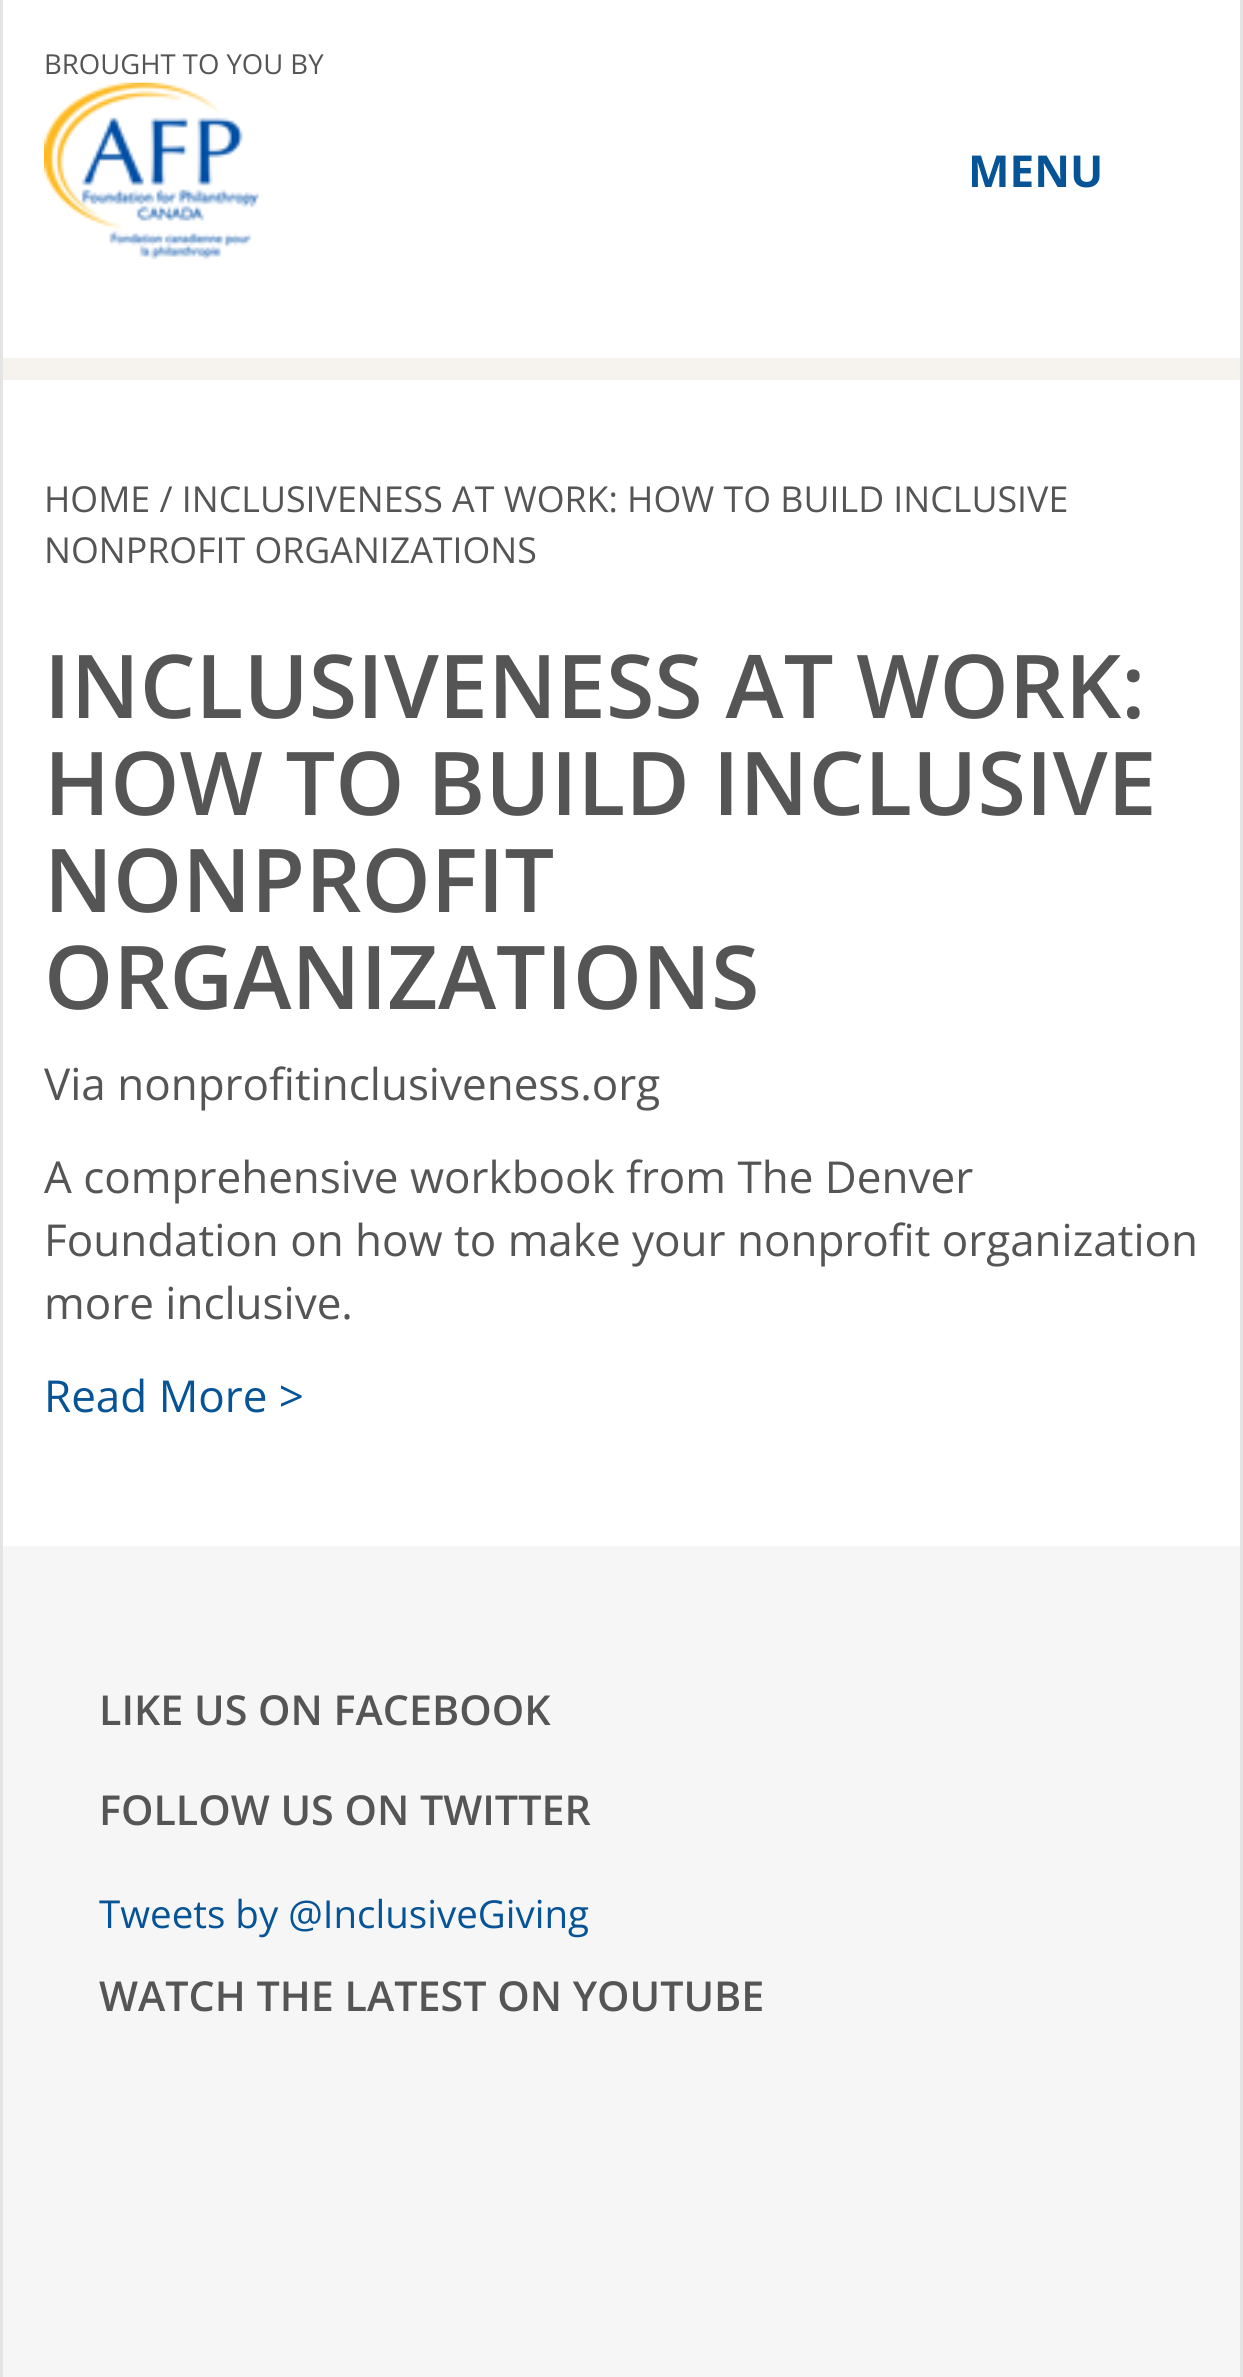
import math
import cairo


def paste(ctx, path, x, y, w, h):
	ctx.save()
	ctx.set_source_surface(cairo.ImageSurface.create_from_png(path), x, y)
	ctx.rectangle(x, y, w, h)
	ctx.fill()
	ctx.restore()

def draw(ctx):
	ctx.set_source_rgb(1, 1, 1)
	ctx.paint()
	ctx.set_source_rgb(0.894, 0.894, 0.894)
	ctx.rectangle(1240, 0, 3, 2377)
	ctx.fill()
	ctx.rectangle(0, 0, 3, 2377)
	ctx.fill()
	ctx.select_font_face('Open Sans')
	ctx.set_font_size(27.5)
	ctx.set_source_rgb(0.333, 0.333, 0.333)
	ctx.move_to(44, 74)
	ctx.show_text('BROUGHT TO YOU BY')
	paste(ctx, 'media/1.png', 44, 82, 215, 178)
	ctx.select_font_face('Open Sans', cairo.FONT_SLANT_NORMAL, cairo.FONT_WEIGHT_BOLD)
	ctx.set_font_size(44)
	ctx.set_source_rgb(0.024, 0.329, 0.588)
	ctx.move_to(968, 187)
	ctx.show_text('MENU')
	ctx.set_source_rgb(0.961, 0.949, 0.929)
	ctx.rectangle(3, 358, 1237, 22)
	ctx.fill()
	ctx.select_font_face('Open Sans')
	ctx.set_font_size(35.75)
	ctx.set_source_rgb(0.333, 0.333, 0.333)
	ctx.move_to(44, 512)
	ctx.show_text('HOME / INCLUSIVENESS AT WORK: HOW TO BUILD INCLUSIVE')
	ctx.move_to(44, 563)
	ctx.show_text('NONPROFIT ORGANIZATIONS')
	ctx.select_font_face('Open Sans SemiBold')
	ctx.set_font_size(88)
	for x, y, s in [
		(44, 718, 'INCLUSIVENESS AT WORK:'),
		(44, 815, 'HOW TO BUILD INCLUSIVE'),
		(44, 912, 'NONPROFIT'),
		(44, 1009, 'ORGANIZATIONS'),
	]:
		ctx.move_to(x, y)
		ctx.show_text(s)
	ctx.select_font_face('Open Sans')
	ctx.set_font_size(44)
	for x, y, s in [
		(44, 1100, 'Via nonprofitinclusiveness.org'),
		(44, 1193, 'A comprehensive workbook from The Denver'),
		(44, 1256, 'Foundation on how to make your nonprofit organization'),
		(44, 1319, 'more inclusive.'),
	]:
		ctx.move_to(x, y)
		ctx.show_text(s)
	ctx.set_source_rgb(0.024, 0.329, 0.588)
	ctx.move_to(44, 1412)
	ctx.show_text('Read More >')
	ctx.set_source_rgb(0.961, 0.961, 0.961)
	ctx.rectangle(3, 1546, 1237, 831)
	ctx.fill()
	ctx.select_font_face('Open Sans SemiBold')
	ctx.set_font_size(41.25)
	ctx.set_source_rgb(0.333, 0.333, 0.333)
	ctx.move_to(99, 1725)
	ctx.show_text('LIKE US ON FACEBOOK')
	ctx.move_to(99, 1825)
	ctx.show_text('FOLLOW US ON TWITTER')
	ctx.select_font_face('Open Sans')
	ctx.set_font_size(38.5)
	ctx.set_source_rgb(0.024, 0.329, 0.588)
	ctx.move_to(99, 1928)
	ctx.show_text('Tweets by @InclusiveGiving')
	ctx.select_font_face('Open Sans SemiBold')
	ctx.set_font_size(41.25)
	ctx.set_source_rgb(0.333, 0.333, 0.333)
	ctx.move_to(99, 2011)
	ctx.show_text('WATCH THE LATEST ON YOUTUBE')


surface = cairo.ImageSurface(cairo.FORMAT_RGB24, 1243, 2377)
ctx = cairo.Context(surface)
options = cairo.FontOptions()
options.set_hint_metrics(cairo.HINT_METRICS_OFF)
options.set_hint_style(cairo.HINT_STYLE_NONE)
ctx.set_font_options(options)
ctx.set_miter_limit(4)
draw(ctx)
surface.write_to_png('image.png')
